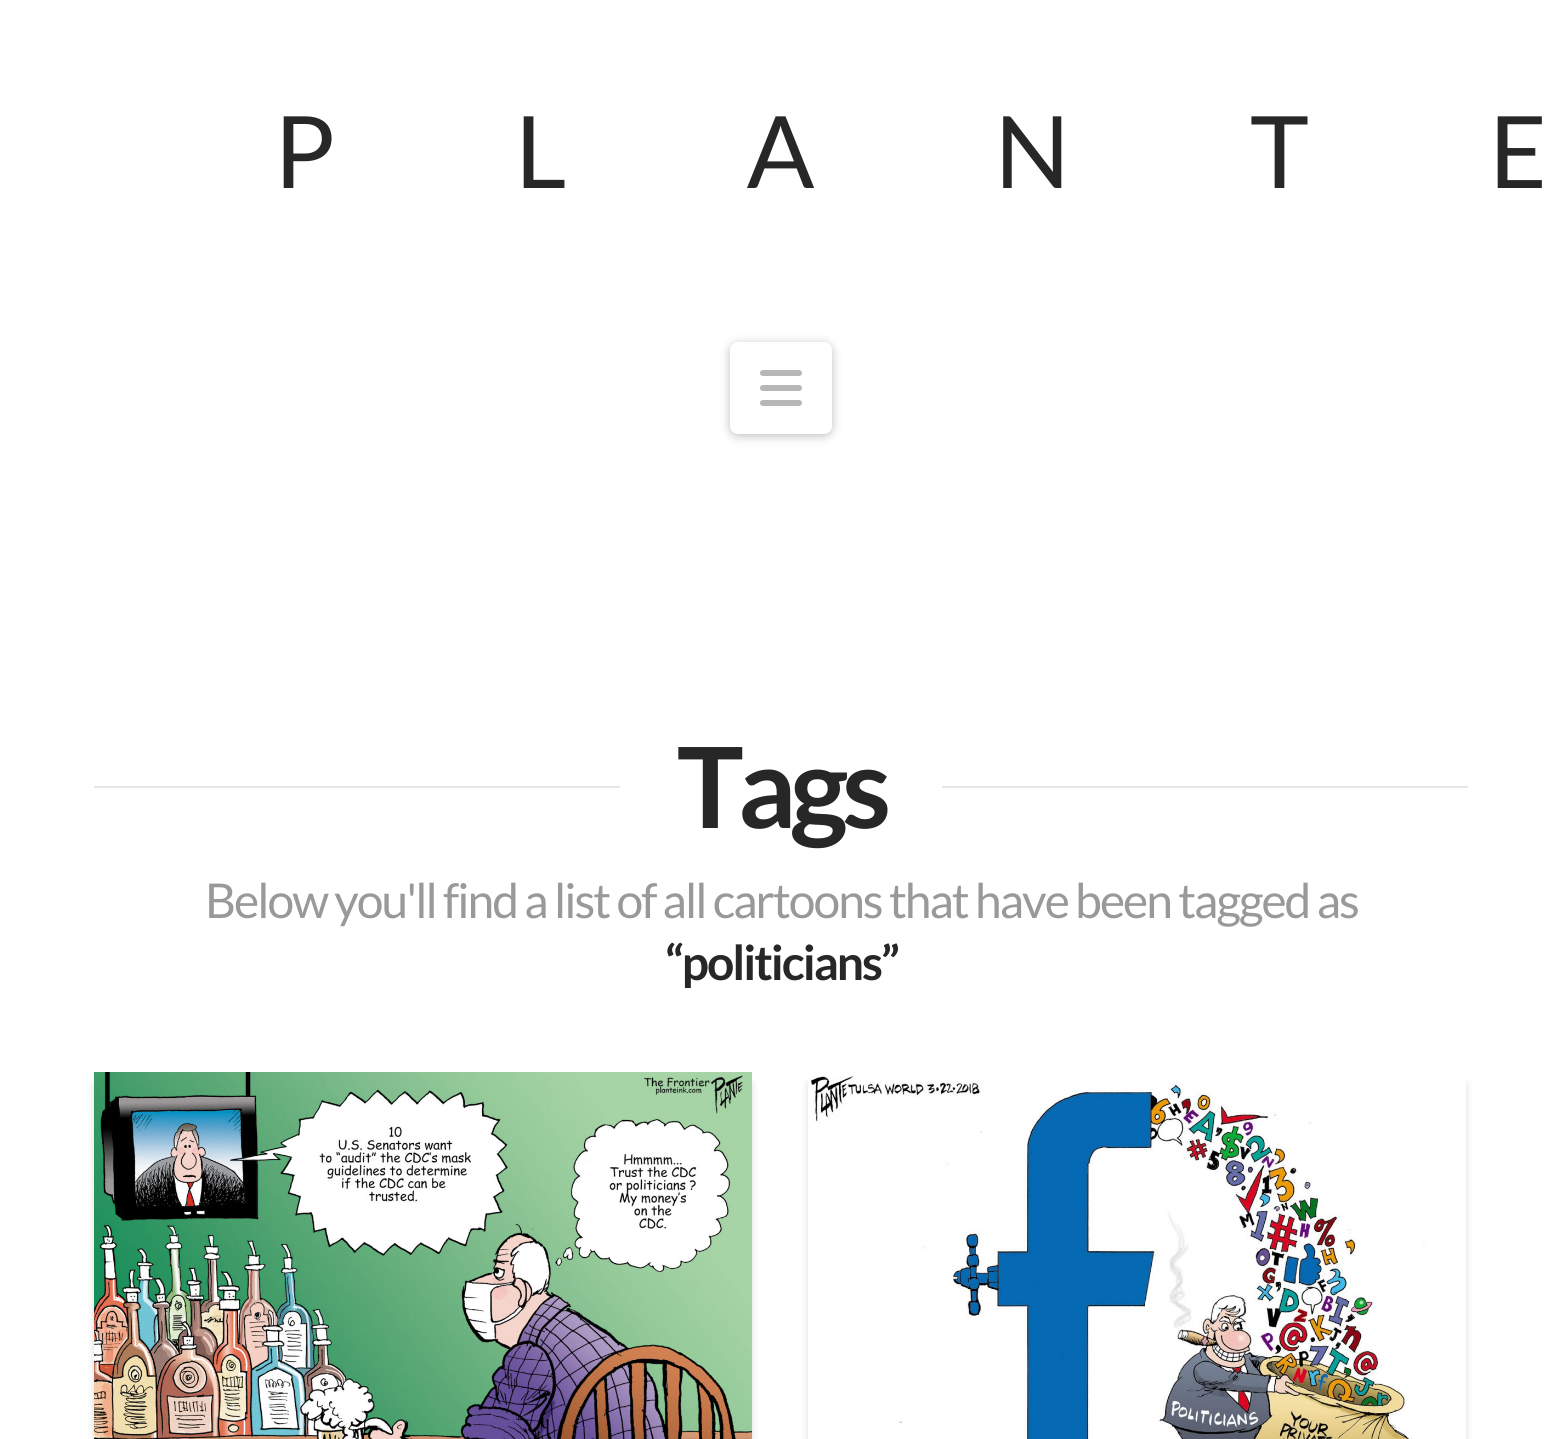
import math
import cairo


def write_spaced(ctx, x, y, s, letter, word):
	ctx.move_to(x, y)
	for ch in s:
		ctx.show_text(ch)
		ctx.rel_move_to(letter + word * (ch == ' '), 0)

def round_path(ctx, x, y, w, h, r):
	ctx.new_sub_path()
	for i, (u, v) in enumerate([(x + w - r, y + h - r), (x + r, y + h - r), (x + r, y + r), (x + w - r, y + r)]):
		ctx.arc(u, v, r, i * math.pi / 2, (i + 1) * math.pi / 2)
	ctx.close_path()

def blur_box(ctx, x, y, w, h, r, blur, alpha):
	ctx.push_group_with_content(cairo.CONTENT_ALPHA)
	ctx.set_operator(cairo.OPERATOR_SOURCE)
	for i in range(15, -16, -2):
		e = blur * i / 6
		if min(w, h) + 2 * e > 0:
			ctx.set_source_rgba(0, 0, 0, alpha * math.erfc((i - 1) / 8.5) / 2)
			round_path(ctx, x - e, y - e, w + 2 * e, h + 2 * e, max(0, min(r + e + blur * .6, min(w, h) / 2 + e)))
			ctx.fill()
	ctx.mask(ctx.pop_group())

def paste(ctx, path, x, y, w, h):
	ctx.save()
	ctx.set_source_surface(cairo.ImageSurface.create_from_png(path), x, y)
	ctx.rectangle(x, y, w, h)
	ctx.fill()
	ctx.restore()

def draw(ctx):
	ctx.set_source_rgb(1, 1, 1)
	ctx.paint()
	ctx.select_font_face('Lato')
	ctx.set_font_size(100)
	ctx.set_source_rgb(0.153, 0.153, 0.153)
	write_spaced(ctx, 274, 188, 'PLANTE', 180, 0)
	ctx.set_source_rgb(0, 0, 0)
	blur_box(ctx, 730, 344, 102, 92, 8, 5, 0.25)
	ctx.set_source_rgb(1, 1, 1)
	round_path(ctx, 730, 342, 102, 92, 8)
	ctx.fill()
	paste(ctx, 'media/1.png', 760, 370, 42, 36)
	ctx.set_source_rgb(0.902, 0.902, 0.902)
	ctx.rectangle(94, 786, 526, 2)
	ctx.fill()
	ctx.select_font_face('Lato', cairo.FONT_SLANT_NORMAL, cairo.FONT_WEIGHT_BOLD)
	ctx.set_font_size(112)
	ctx.set_source_rgb(0.153, 0.153, 0.153)
	write_spaced(ctx, 677, 828, 'Tags', -6, 0)
	ctx.set_source_rgb(0.902, 0.902, 0.902)
	ctx.rectangle(942, 786, 526, 2)
	ctx.fill()
	ctx.select_font_face('Lato')
	ctx.set_font_size(48)
	ctx.set_source_rgb(0.6, 0.6, 0.6)
	write_spaced(ctx, 205, 918, 'Below you\'ll find a list of all cartoons that have been tagged as', -2, 0)
	ctx.select_font_face('Lato', cairo.FONT_SLANT_NORMAL, cairo.FONT_WEIGHT_BOLD)
	ctx.set_source_rgb(0.153, 0.153, 0.153)
	write_spaced(ctx, 665, 980, '“politicians”', -2, 0)
	ctx.set_source_rgb(0, 0, 0)
	blur_box(ctx, 94, 1084, 642, 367, 0, 4, 0.13)
	blur_box(ctx, 110, 1084, 642, 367, 0, 4, 0.13)
	paste(ctx, 'media/2.png', 94, 1072, 658, 367)
	blur_box(ctx, 808, 1084, 642, 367, 0, 4, 0.13)
	blur_box(ctx, 824, 1084, 642, 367, 0, 4, 0.13)
	paste(ctx, 'media/3.png', 808, 1072, 658, 367)


surface = cairo.ImageSurface(cairo.FORMAT_RGB24, 1561, 1439)
ctx = cairo.Context(surface)
options = cairo.FontOptions()
options.set_hint_metrics(cairo.HINT_METRICS_OFF)
options.set_hint_style(cairo.HINT_STYLE_NONE)
ctx.set_font_options(options)
ctx.set_miter_limit(4)
draw(ctx)
surface.write_to_png('image.png')
